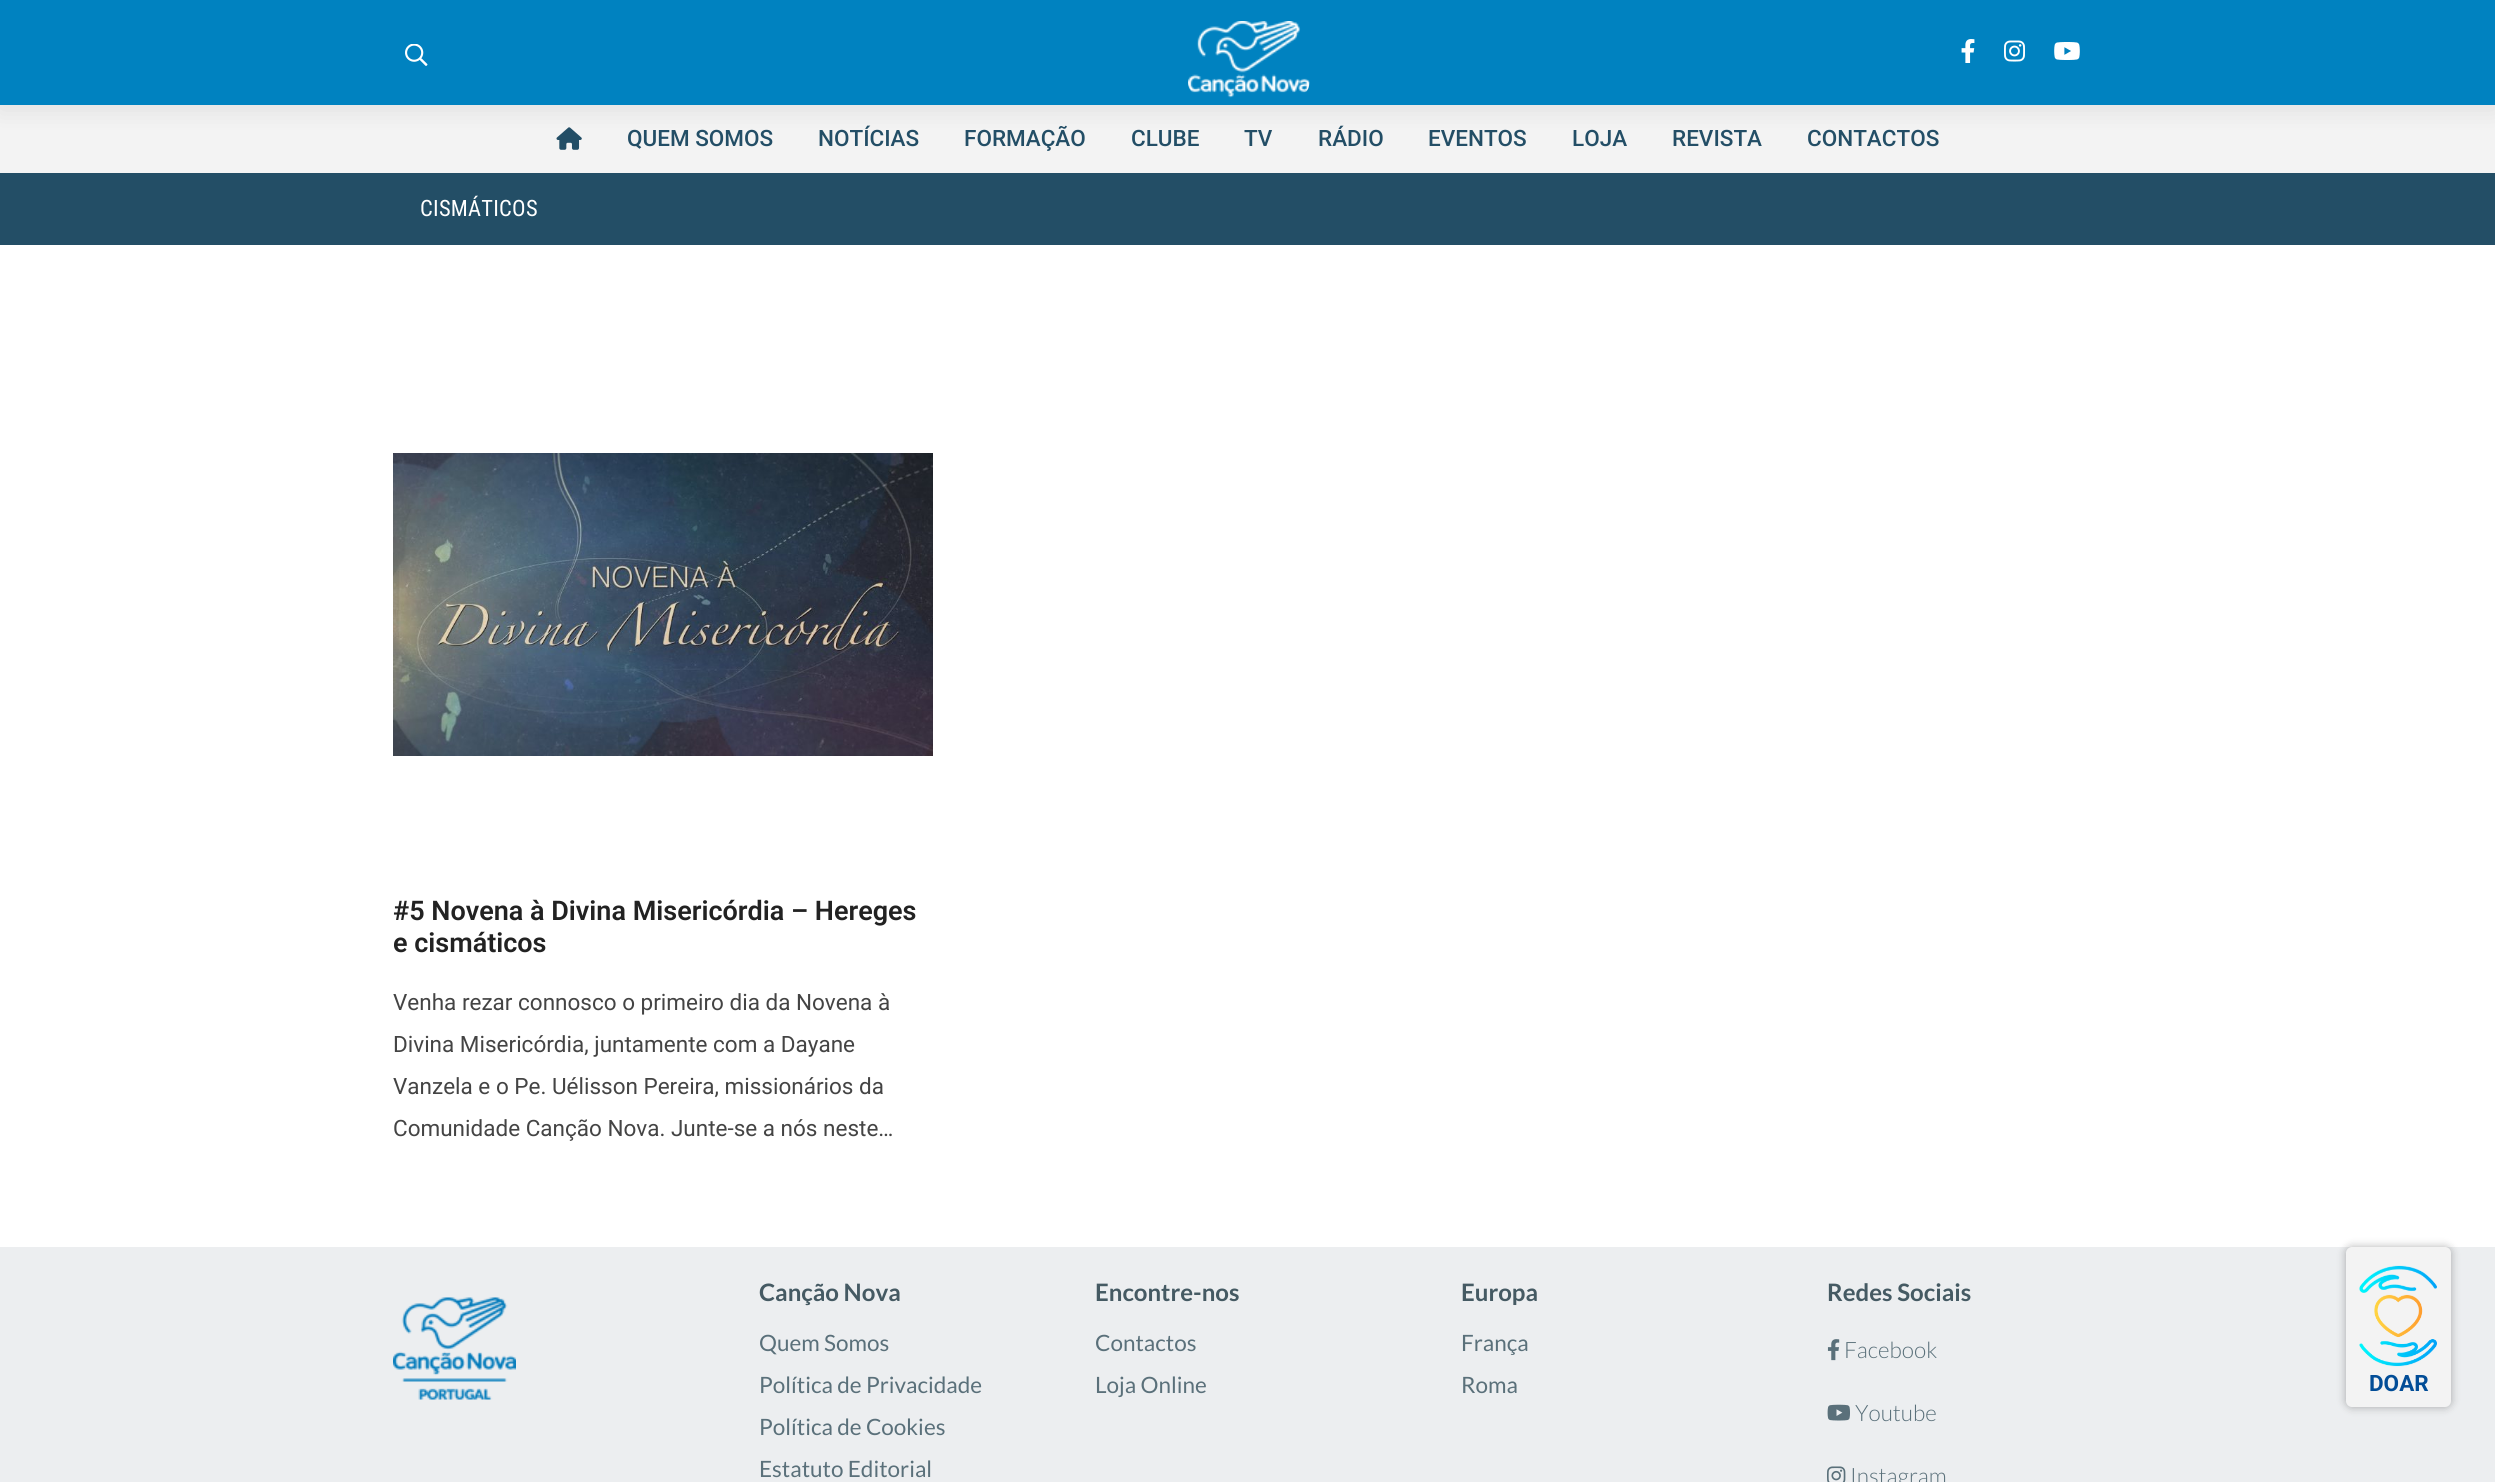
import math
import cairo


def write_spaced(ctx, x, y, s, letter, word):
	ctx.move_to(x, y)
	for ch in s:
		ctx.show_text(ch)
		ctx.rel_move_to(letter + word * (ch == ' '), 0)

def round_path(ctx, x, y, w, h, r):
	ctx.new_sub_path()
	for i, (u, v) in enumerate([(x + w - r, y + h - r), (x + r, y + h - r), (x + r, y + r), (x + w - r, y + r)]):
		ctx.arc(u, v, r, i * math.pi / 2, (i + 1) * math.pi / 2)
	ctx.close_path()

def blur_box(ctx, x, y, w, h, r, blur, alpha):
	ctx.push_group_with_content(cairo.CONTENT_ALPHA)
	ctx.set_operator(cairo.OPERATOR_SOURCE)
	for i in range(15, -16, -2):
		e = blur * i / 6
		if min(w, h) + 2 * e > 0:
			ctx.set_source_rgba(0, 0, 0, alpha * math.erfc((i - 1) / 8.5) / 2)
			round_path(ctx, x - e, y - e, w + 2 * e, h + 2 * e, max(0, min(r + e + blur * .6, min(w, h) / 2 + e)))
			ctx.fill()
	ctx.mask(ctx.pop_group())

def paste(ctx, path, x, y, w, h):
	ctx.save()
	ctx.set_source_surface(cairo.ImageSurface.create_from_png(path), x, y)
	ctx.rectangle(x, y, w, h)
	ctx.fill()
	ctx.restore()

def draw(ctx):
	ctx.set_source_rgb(1, 1, 1)
	ctx.paint()
	ctx.set_source_rgb(0.953, 0.953, 0.953)
	ctx.rectangle(0, 105, 2495, 68)
	ctx.fill()
	paste(ctx, 'media/6.png', 556, 127, 26, 23)
	ctx.set_source_rgb(0, 0, 0)
	blur_box(ctx, 0, 5, 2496, 105, 0, 12, 0.08)
	ctx.set_source_rgb(0, 0.51, 0.753)
	ctx.rectangle(0, 0, 2495, 105)
	ctx.fill()
	paste(ctx, 'media/1.png', 405, 44, 23, 22)
	paste(ctx, 'media/2.png', 1188, 21, 122, 77)
	paste(ctx, 'media/3.png', 1961, 39, 14, 24)
	paste(ctx, 'media/4.png', 2004, 40, 21, 22)
	paste(ctx, 'media/5.png', 2054, 42, 26, 18)
	ctx.select_font_face('Roboto Medium')
	ctx.set_font_size(22.5)
	ctx.set_source_rgb(0.137, 0.306, 0.4)
	for x, y, s in [
		(627, 146, 'QUEM SOMOS'),
		(818, 146, 'NOTÍCIAS'),
		(964, 146, 'FORMAÇÃO'),
		(1131, 146, 'CLUBE'),
		(1244, 146, 'TV'),
		(1318, 146, 'RÁDIO'),
		(1428, 146, 'EVENTOS'),
		(1572, 146, 'LOJA'),
		(1672, 146, 'REVISTA'),
		(1807, 146, 'CONTACTOS'),
	]:
		ctx.move_to(x, y)
		ctx.show_text(s)
	ctx.rectangle(0, 173, 2495, 72)
	ctx.fill()
	ctx.select_font_face('Roboto Condensed')
	ctx.set_source_rgb(1, 1, 1)
	write_spaced(ctx, 420, 216, 'CISMÁTICOS', 0.25, 0)
	paste(ctx, 'media/7.png', 393, 453, 540, 303)
	ctx.select_font_face('Roboto SemiBold')
	ctx.set_font_size(27)
	ctx.set_source_rgb(0.133, 0.133, 0.133)
	ctx.move_to(393, 920)
	ctx.show_text('#5 Novena à Divina Misericórdia – Hereges')
	ctx.move_to(393, 952)
	ctx.show_text('e cismáticos')
	ctx.select_font_face('Roboto')
	ctx.set_font_size(22.5)
	ctx.set_source_rgb(0.267, 0.267, 0.267)
	for x, y, s in [
		(393, 1010, 'Venha rezar connosco o primeiro dia da Novena à'),
		(393, 1052, 'Divina Misericórdia, juntamente com a Dayane'),
		(393, 1094, 'Vanzela e o Pe. Uélisson Pereira, missionários da'),
		(393, 1136, 'Comunidade Canção Nova. Junte-se a nós neste…'),
	]:
		ctx.move_to(x, y)
		ctx.show_text(s)
	ctx.set_source_rgb(0.922, 0.933, 0.941)
	ctx.rectangle(0, 1247, 2495, 235)
	ctx.fill()
	paste(ctx, 'media/8.png', 393, 1297, 123, 103)
	ctx.select_font_face('Lato', cairo.FONT_SLANT_NORMAL, cairo.FONT_WEIGHT_BOLD)
	ctx.set_font_size(24)
	ctx.set_source_rgb(0.271, 0.353, 0.388)
	ctx.move_to(759, 1301)
	ctx.show_text('Canção Nova')
	ctx.select_font_face('Lato')
	ctx.set_font_size(22.5)
	ctx.set_source_rgb(0.353, 0.439, 0.478)
	for x, y, s in [
		(759, 1351, 'Quem Somos'),
		(759, 1393, 'Política de Privacidade'),
		(759, 1435, 'Política de Cookies'),
		(759, 1477, 'Estatuto Editorial'),
	]:
		ctx.move_to(x, y)
		ctx.show_text(s)
	ctx.select_font_face('Lato', cairo.FONT_SLANT_NORMAL, cairo.FONT_WEIGHT_BOLD)
	ctx.set_font_size(24)
	ctx.set_source_rgb(0.271, 0.353, 0.388)
	ctx.move_to(1095, 1301)
	ctx.show_text('Encontre-nos')
	ctx.select_font_face('Lato')
	ctx.set_font_size(22.5)
	ctx.set_source_rgb(0.353, 0.439, 0.478)
	ctx.move_to(1095, 1351)
	ctx.show_text('Contactos')
	ctx.move_to(1095, 1393)
	ctx.show_text('Loja Online')
	ctx.select_font_face('Lato', cairo.FONT_SLANT_NORMAL, cairo.FONT_WEIGHT_BOLD)
	ctx.set_font_size(24)
	ctx.set_source_rgb(0.271, 0.353, 0.388)
	ctx.move_to(1461, 1301)
	ctx.show_text('Europa')
	ctx.select_font_face('Lato')
	ctx.set_font_size(22.5)
	ctx.set_source_rgb(0.353, 0.439, 0.478)
	ctx.move_to(1461, 1351)
	ctx.show_text('França')
	ctx.move_to(1461, 1393)
	ctx.show_text('Roma')
	ctx.select_font_face('Lato', cairo.FONT_SLANT_NORMAL, cairo.FONT_WEIGHT_BOLD)
	ctx.set_font_size(24)
	ctx.set_source_rgb(0.271, 0.353, 0.388)
	ctx.move_to(1827, 1301)
	ctx.show_text('Redes Sociais')
	paste(ctx, 'media/9.png', 1827, 1339, 13, 22)
	ctx.select_font_face('Lato Light')
	ctx.set_font_size(22.5)
	ctx.set_source_rgb(0.353, 0.439, 0.478)
	ctx.move_to(1844, 1358)
	ctx.show_text('Facebook')
	paste(ctx, 'media/10.png', 1827, 1404, 23, 17)
	ctx.move_to(1855, 1421)
	ctx.show_text('Youtube')
	paste(ctx, 'media/11.png', 1827, 1466, 19, 16)
	ctx.move_to(1850, 1484)
	ctx.show_text('Instagram')
	ctx.set_source_rgb(0, 0, 0)
	blur_box(ctx, 2346, 1247, 105, 160, 6, 4.5, 0.3)
	ctx.set_source_rgb(0.953, 0.953, 0.953)
	round_path(ctx, 2347, 1248, 103, 158, 5)
	ctx.fill_preserve()
	ctx.stroke()
	paste(ctx, 'media/12.png', 2359, 1265, 78, 102)
	ctx.select_font_face('Roboto', cairo.FONT_SLANT_NORMAL, cairo.FONT_WEIGHT_BOLD)
	ctx.set_source_rgb(0.008, 0.302, 0.592)
	ctx.move_to(2369, 1391)
	ctx.show_text('DOAR')


surface = cairo.ImageSurface(cairo.FORMAT_RGB24, 2495, 1482)
ctx = cairo.Context(surface)
options = cairo.FontOptions()
options.set_hint_metrics(cairo.HINT_METRICS_OFF)
options.set_hint_style(cairo.HINT_STYLE_NONE)
ctx.set_font_options(options)
ctx.set_miter_limit(4)
draw(ctx)
surface.write_to_png('image.png')
